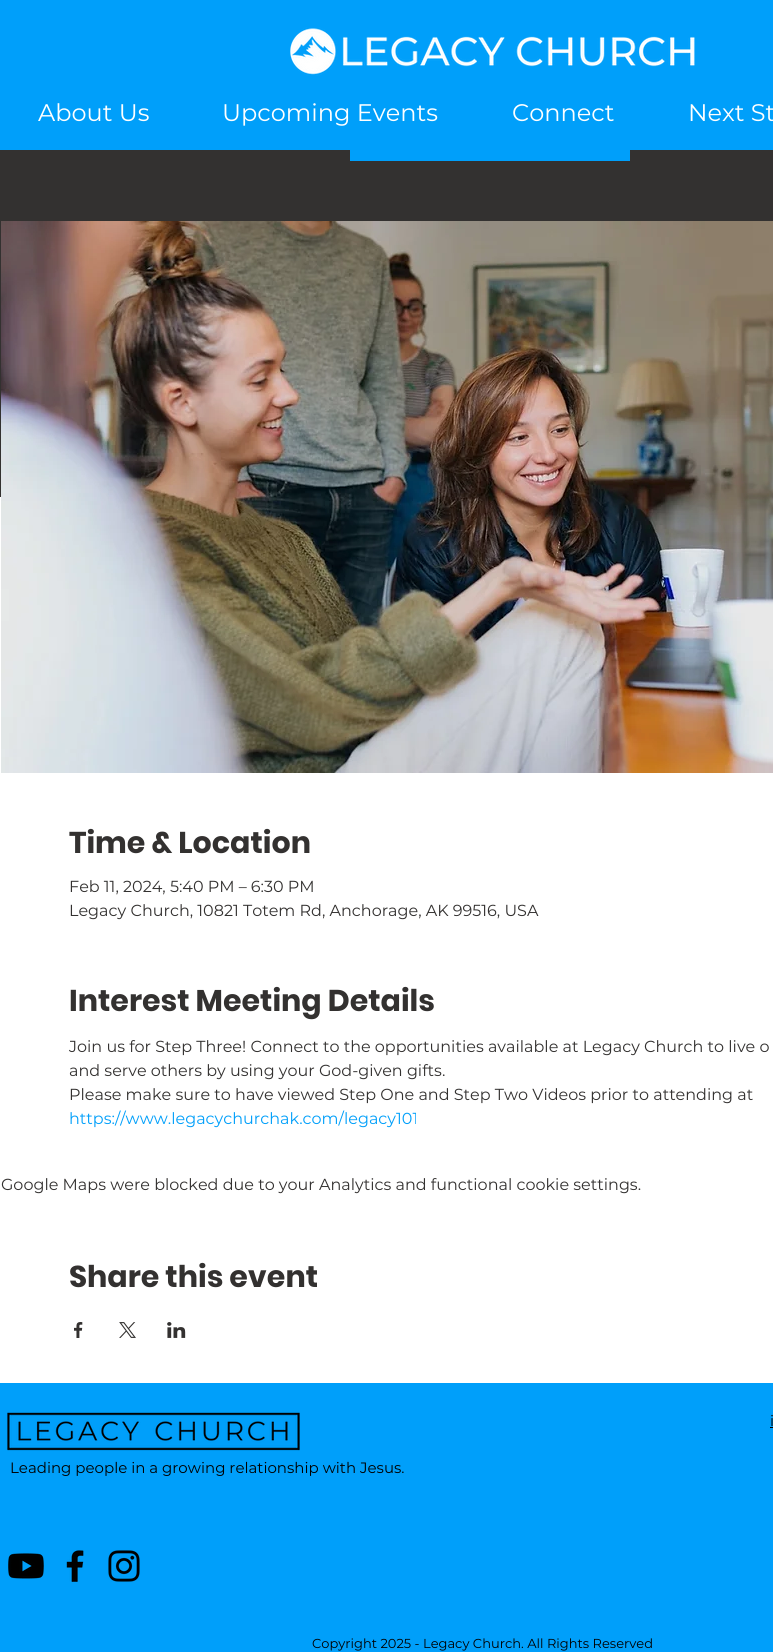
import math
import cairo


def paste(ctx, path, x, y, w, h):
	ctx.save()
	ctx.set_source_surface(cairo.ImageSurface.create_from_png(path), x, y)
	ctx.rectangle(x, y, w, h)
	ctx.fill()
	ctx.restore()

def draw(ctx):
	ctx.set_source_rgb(1, 1, 1)
	ctx.paint()
	ctx.set_source_rgb(0, 0.624, 0.98)
	ctx.rectangle(0, 0, 773, 150)
	ctx.fill()
	paste(ctx, 'media/1.png', 290, 27, 405, 49)
	ctx.select_font_face('Montserrat')
	ctx.set_font_size(24)
	ctx.set_source_rgb(1, 1, 1)
	for x, y, s in [
		(38, 121, 'About Us'),
		(222, 121, 'Upcoming Events'),
		(512, 121, 'Connect'),
		(688, 121, 'Next St'),
	]:
		ctx.move_to(x, y)
		ctx.show_text(s)
	ctx.set_source_rgb(0.2, 0.192, 0.188)
	ctx.rectangle(0, 150, 773, 347)
	ctx.fill()
	ctx.set_source_rgb(0, 0.624, 0.98)
	ctx.rectangle(350, 150, 280, 11)
	ctx.fill()
	paste(ctx, 'media/2.png', 1, 221, 772, 552)
	ctx.select_font_face('Poppins', cairo.FONT_SLANT_NORMAL, cairo.FONT_WEIGHT_BOLD)
	ctx.set_font_size(30)
	ctx.set_source_rgb(0.2, 0.192, 0.188)
	ctx.move_to(69, 853)
	ctx.show_text('Time & Location')
	ctx.select_font_face('Montserrat')
	ctx.set_font_size(16)
	ctx.move_to(69, 892)
	ctx.show_text('Feb 11, 2024, 5:40 PM – 6:30 PM')
	ctx.move_to(69, 916)
	ctx.show_text('Legacy Church, 10821 Totem Rd, Anchorage, AK 99516, USA')
	ctx.select_font_face('Poppins', cairo.FONT_SLANT_NORMAL, cairo.FONT_WEIGHT_BOLD)
	ctx.set_font_size(30)
	ctx.move_to(69, 1011)
	ctx.show_text('Interest Meeting Details')
	ctx.select_font_face('Montserrat')
	ctx.set_font_size(16)
	for x, y, s in [
		(69, 1052, 'Join us for Step Three! Connect to the opportunities available at Legacy Church to live o'),
		(69, 1076, 'and serve others by using your God-given gifts.'),
		(69, 1100, 'Please make sure to have viewed Step One and Step Two Videos prior to attending at'),
	]:
		ctx.move_to(x, y)
		ctx.show_text(s)
	ctx.set_source_rgb(0, 0.624, 0.98)
	ctx.move_to(69, 1124)
	ctx.show_text('https://www.legacychurchak.com/legacy101')
	ctx.set_source_rgb(0.2, 0.192, 0.188)
	ctx.move_to(1, 1190)
	ctx.show_text('Google Maps were blocked due to your Analytics and functional cookie settings.')
	ctx.select_font_face('Poppins', cairo.FONT_SLANT_NORMAL, cairo.FONT_WEIGHT_BOLD)
	ctx.set_font_size(30)
	ctx.move_to(69, 1287)
	ctx.show_text('Share this event')
	paste(ctx, 'media/3.png', 74, 1322, 9, 16)
	paste(ctx, 'media/4.png', 119, 1322, 17, 16)
	paste(ctx, 'media/5.png', 167, 1322, 19, 16)
	ctx.set_source_rgb(0, 0.624, 0.98)
	ctx.rectangle(0, 1383, 773, 269)
	ctx.fill()
	paste(ctx, 'media/6.png', 7, 1412, 293, 39)
	ctx.select_font_face('Montserrat')
	ctx.set_font_size(15)
	ctx.set_source_rgb(0, 0, 0)
	ctx.move_to(770, 1426)
	ctx.show_text('i')
	ctx.rectangle(770, 1427, 3, 1)
	ctx.fill()
	ctx.move_to(10, 1473)
	ctx.show_text('Leading people in a growing relationship with Jesus.')
	paste(ctx, 'media/7.png', 8, 1553, 36, 26)
	paste(ctx, 'media/8.png', 66, 1550, 18, 32)
	paste(ctx, 'media/9.png', 108, 1550, 32, 32)
	ctx.set_font_size(13)
	ctx.move_to(312, 1648)
	ctx.show_text('Copyright 2025 - Legacy Church. All Rights Reserved')


surface = cairo.ImageSurface(cairo.FORMAT_RGB24, 773, 1652)
ctx = cairo.Context(surface)
options = cairo.FontOptions()
options.set_hint_metrics(cairo.HINT_METRICS_OFF)
options.set_hint_style(cairo.HINT_STYLE_NONE)
ctx.set_font_options(options)
ctx.set_miter_limit(4)
draw(ctx)
surface.write_to_png('image.png')
